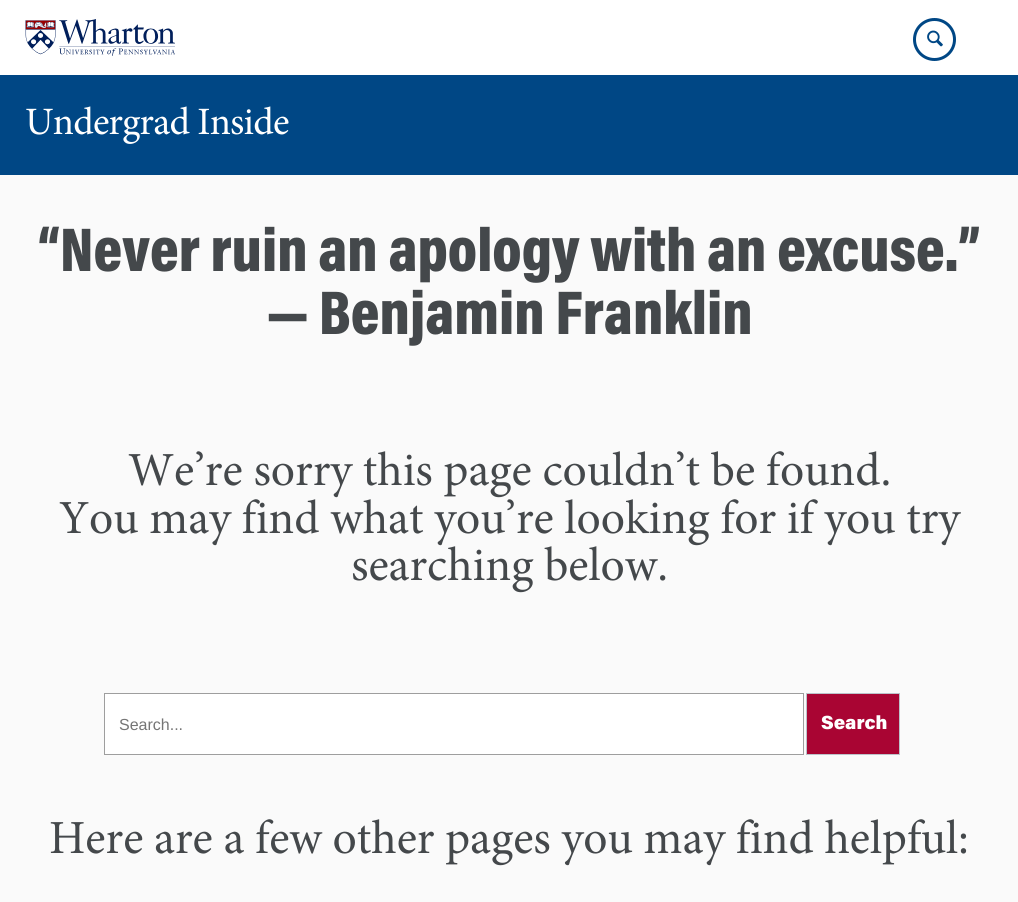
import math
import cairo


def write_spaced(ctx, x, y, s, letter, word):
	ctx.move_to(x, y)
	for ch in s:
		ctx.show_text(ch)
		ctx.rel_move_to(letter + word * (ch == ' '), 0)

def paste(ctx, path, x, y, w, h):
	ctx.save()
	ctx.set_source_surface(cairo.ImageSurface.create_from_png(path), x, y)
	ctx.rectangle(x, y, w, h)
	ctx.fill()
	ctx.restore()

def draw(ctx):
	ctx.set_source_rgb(0.98, 0.98, 0.98)
	ctx.paint()
	ctx.set_source_rgb(1, 1, 1)
	ctx.rectangle(0, 0, 1018, 75)
	ctx.fill()
	paste(ctx, 'media/1.png', 25, 19, 150, 37)
	ctx.arc(934.5, 39.5, 20, 0, 2 * math.pi)
	ctx.set_source_rgb(0, 0.278, 0.522)
	ctx.set_line_width(3)
	ctx.stroke()
	paste(ctx, 'media/2.png', 927, 30, 16, 17)
	ctx.rectangle(0, 75, 1018, 100)
	ctx.fill()
	ctx.select_font_face('minion')
	ctx.set_font_size(38.75)
	ctx.set_source_rgb(1, 1, 1)
	write_spaced(ctx, 25, 134, 'Undergrad Inside', -0.75, 0)
	ctx.select_font_face('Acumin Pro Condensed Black')
	ctx.set_font_size(62.5)
	ctx.set_source_rgb(0.267, 0.282, 0.294)
	ctx.move_to(38, 271)
	ctx.show_text('“Never ruin an apology with an excuse.”')
	ctx.move_to(267, 334)
	ctx.show_text('— Benjamin Franklin')
	ctx.select_font_face('minion')
	ctx.set_font_size(47.5)
	for x, y, s in [
		(128, 485, 'We’re sorry this page couldn’t be found.'),
		(59, 533, 'You may find what you’re looking for if you try'),
		(351, 580, 'searching below.'),
	]:
		ctx.move_to(x, y)
		ctx.show_text(s)
	ctx.rectangle(104.5, 693.5, 699, 61)
	ctx.set_source_rgb(0.62, 0.62, 0.62)
	ctx.set_line_width(1)
	ctx.stroke()
	ctx.set_source_rgb(1, 1, 1)
	ctx.rectangle(105, 694, 698, 60)
	ctx.fill()
	ctx.select_font_face('Liberation Sans')
	ctx.set_font_size(16)
	ctx.set_source_rgb(0.459, 0.459, 0.459)
	ctx.move_to(119, 730)
	ctx.show_text('Search...')
	ctx.set_source_rgb(0.663, 0.02, 0.2)
	ctx.rectangle(806.5, 693.5, 93, 61)
	ctx.fill_preserve()
	ctx.set_source_rgb(0.737, 0.765, 0.792)
	ctx.stroke()
	ctx.select_font_face('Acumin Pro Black')
	ctx.set_font_size(19)
	ctx.set_source_rgb(1, 1, 1)
	ctx.move_to(821, 729)
	ctx.show_text('Search')
	ctx.select_font_face('minion')
	ctx.set_font_size(47.5)
	ctx.set_source_rgb(0.267, 0.282, 0.294)
	ctx.move_to(49, 853)
	ctx.show_text('Here are a few other pages you may find helpful:')


surface = cairo.ImageSurface(cairo.FORMAT_RGB24, 1018, 902)
ctx = cairo.Context(surface)
options = cairo.FontOptions()
options.set_hint_metrics(cairo.HINT_METRICS_OFF)
options.set_hint_style(cairo.HINT_STYLE_NONE)
ctx.set_font_options(options)
ctx.set_miter_limit(4)
draw(ctx)
surface.write_to_png('image.png')
